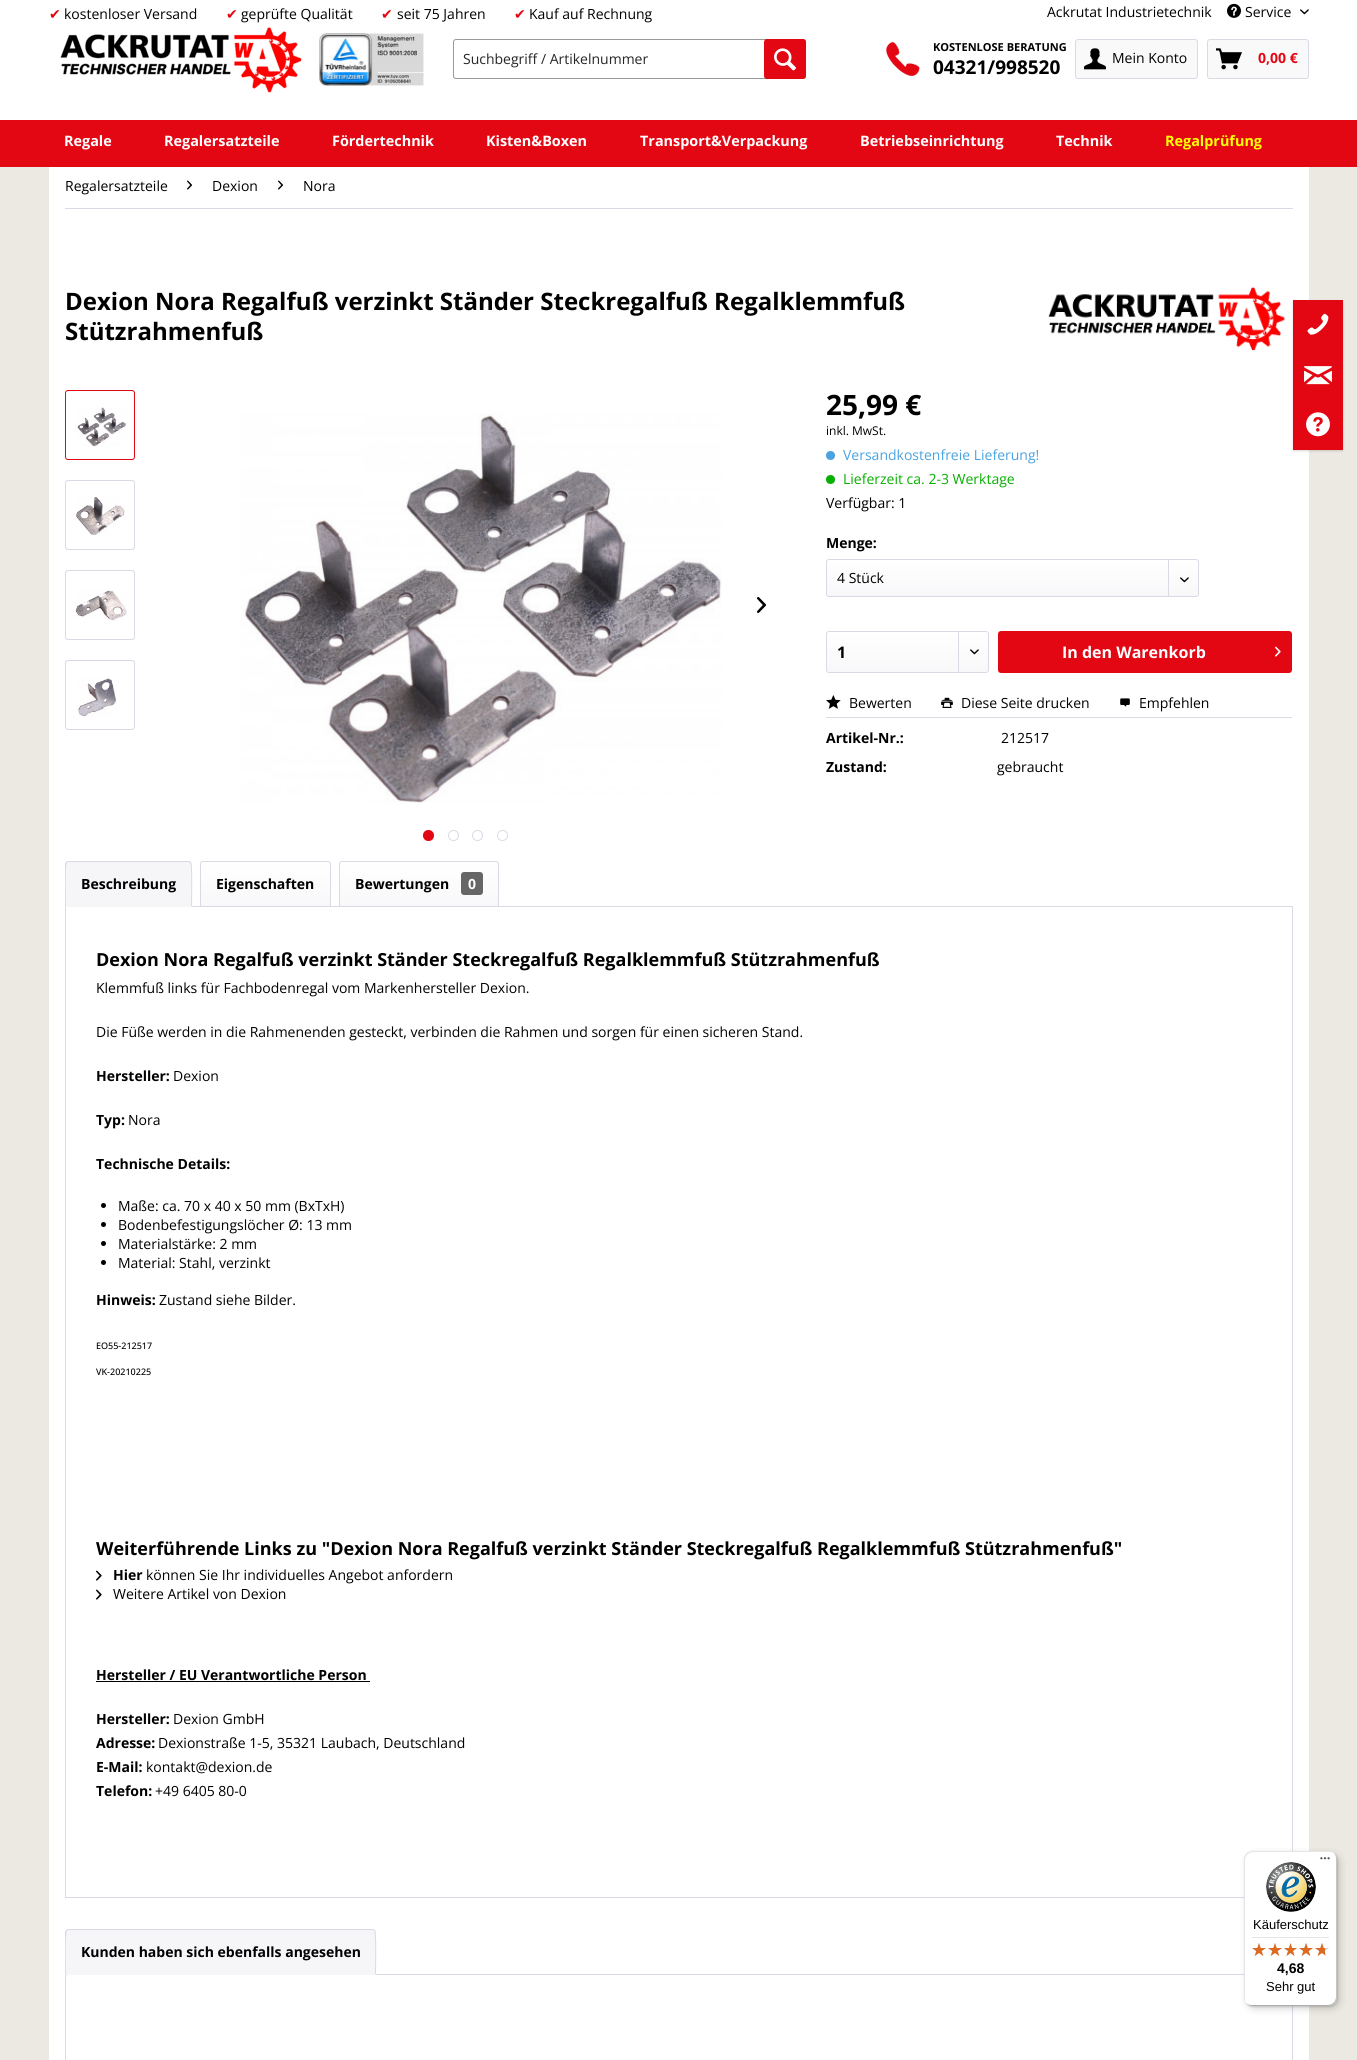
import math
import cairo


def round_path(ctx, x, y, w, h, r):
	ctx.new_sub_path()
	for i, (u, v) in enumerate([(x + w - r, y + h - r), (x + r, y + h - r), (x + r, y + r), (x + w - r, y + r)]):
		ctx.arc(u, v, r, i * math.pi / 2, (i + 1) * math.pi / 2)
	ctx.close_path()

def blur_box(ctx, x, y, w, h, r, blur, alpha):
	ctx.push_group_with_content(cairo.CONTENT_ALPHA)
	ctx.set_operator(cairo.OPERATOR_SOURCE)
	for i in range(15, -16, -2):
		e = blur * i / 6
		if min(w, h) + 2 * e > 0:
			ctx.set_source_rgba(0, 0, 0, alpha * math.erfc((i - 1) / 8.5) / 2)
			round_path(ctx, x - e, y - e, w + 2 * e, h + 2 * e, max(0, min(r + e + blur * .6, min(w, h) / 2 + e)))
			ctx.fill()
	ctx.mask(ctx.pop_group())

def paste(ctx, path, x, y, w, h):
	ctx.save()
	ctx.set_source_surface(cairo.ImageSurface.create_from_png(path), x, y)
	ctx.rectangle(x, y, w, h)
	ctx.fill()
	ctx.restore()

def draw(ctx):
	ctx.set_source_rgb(0.925, 0.914, 0.886)
	ctx.paint()
	ctx.set_source_rgb(1, 1, 1)
	ctx.rectangle(0, 0, 1357, 120)
	ctx.fill()
	ctx.select_font_face('DejaVu Sans')
	ctx.set_font_size(14)
	ctx.set_source_rgb(0.89, 0.024, 0.075)
	ctx.move_to(49, 19)
	ctx.show_text('✔')
	ctx.select_font_face('Open Sans')
	ctx.set_source_rgb(0, 0, 0)
	ctx.move_to(64, 19)
	ctx.show_text('kostenloser Versand')
	ctx.select_font_face('DejaVu Sans')
	ctx.set_source_rgb(0.89, 0.024, 0.075)
	ctx.move_to(226, 19)
	ctx.show_text('✔')
	ctx.select_font_face('Open Sans')
	ctx.set_source_rgb(0, 0, 0)
	ctx.move_to(241, 19)
	ctx.show_text('geprüfte Qualität')
	ctx.select_font_face('DejaVu Sans')
	ctx.set_source_rgb(0.89, 0.024, 0.075)
	ctx.move_to(381, 19)
	ctx.show_text('✔')
	ctx.select_font_face('Open Sans')
	ctx.set_source_rgb(0, 0, 0)
	ctx.move_to(397, 19)
	ctx.show_text('seit 75 Jahren')
	ctx.select_font_face('DejaVu Sans')
	ctx.set_source_rgb(0.89, 0.024, 0.075)
	ctx.move_to(514, 19)
	ctx.show_text('✔')
	ctx.select_font_face('Open Sans')
	ctx.set_source_rgb(0, 0, 0)
	ctx.move_to(529, 19)
	ctx.show_text('Kauf auf Rechnung')
	ctx.move_to(1047, 17)
	ctx.show_text('Ackrutat Industrietechnik')
	paste(ctx, 'media/1.png', 1227, 3, 14, 15)
	ctx.move_to(1245, 17)
	ctx.show_text('Service')
	paste(ctx, 'media/2.png', 1300, 9, 9, 6)
	paste(ctx, 'media/3.png', 60, 27, 242, 66)
	paste(ctx, 'media/4.png', 319, 33, 105, 53)
	round_path(ctx, 453.5, 39.5, 352, 39, 2.5)
	ctx.set_source_rgb(0.6, 0.6, 0.6)
	ctx.set_line_width(1)
	ctx.stroke()
	ctx.set_source_rgb(0.149, 0.149, 0.149)
	ctx.move_to(463, 64)
	ctx.show_text('Suchbegriff / Artikelnummer')
	ctx.set_source_rgb(0.89, 0.024, 0.075)
	round_path(ctx, 764, 39, 42, 40, 3)
	ctx.fill()
	paste(ctx, 'media/5.png', 774, 48, 22, 23)
	paste(ctx, 'media/6.png', 886, 41, 34, 35)
	ctx.select_font_face('Open Sans', cairo.FONT_SLANT_NORMAL, cairo.FONT_WEIGHT_BOLD)
	ctx.set_font_size(11)
	ctx.set_source_rgb(0, 0, 0)
	ctx.move_to(933, 51)
	ctx.show_text('KOSTENLOSE BERATUNG')
	ctx.set_font_size(19)
	ctx.move_to(933, 74)
	ctx.show_text('04321/998520')
	ctx.set_source_rgb(0.973, 0.973, 0.98)
	round_path(ctx, 1075.5, 39.5, 122, 39, 2.5)
	ctx.fill_preserve()
	ctx.set_source_rgb(0.855, 0.855, 0.898)
	ctx.stroke()
	paste(ctx, 'media/7.png', 1084, 48, 22, 22)
	ctx.select_font_face('Open Sans')
	ctx.set_font_size(14)
	ctx.set_source_rgb(0, 0, 0)
	ctx.move_to(1112, 63)
	ctx.show_text('Mein Konto')
	ctx.set_source_rgb(0.973, 0.973, 0.98)
	round_path(ctx, 1207.5, 39.5, 101, 39, 2.5)
	ctx.fill_preserve()
	ctx.set_source_rgb(0.855, 0.855, 0.898)
	ctx.stroke()
	paste(ctx, 'media/8.png', 1216, 48, 26, 22)
	ctx.select_font_face('Open Sans', cairo.FONT_SLANT_NORMAL, cairo.FONT_WEIGHT_BOLD)
	ctx.set_source_rgb(0.89, 0.024, 0.075)
	ctx.move_to(1258, 63)
	ctx.show_text('0,00 €')
	ctx.rectangle(0, 120, 1357, 47)
	ctx.fill()
	ctx.set_font_size(14.4)
	ctx.set_source_rgb(1, 1, 1)
	for x, y, s in [
		(64, 146, 'Regale'),
		(164, 146, 'Regalersatzteile'),
		(332, 146, 'Fördertechnik'),
		(486, 146, 'Kisten&Boxen'),
		(640, 146, 'Transport&Verpackung'),
		(860, 146, 'Betriebseinrichtung'),
		(1056, 146, 'Technik'),
	]:
		ctx.move_to(x, y)
		ctx.show_text(s)
	ctx.set_source_rgb(1, 1, 0)
	ctx.move_to(1165, 146)
	ctx.show_text('Regalprüfung')
	ctx.set_source_rgb(1, 1, 1)
	ctx.rectangle(49, 167, 1260, 1893)
	ctx.fill()
	ctx.set_source_rgb(0.855, 0.855, 0.898)
	ctx.rectangle(65, 208, 1228, 1)
	ctx.fill()
	ctx.select_font_face('Open Sans')
	ctx.set_font_size(14)
	ctx.set_source_rgb(0, 0, 0)
	ctx.move_to(65, 191)
	ctx.show_text('Regalersatzteile')
	paste(ctx, 'media/9.png', 187, 180, 5, 10)
	ctx.move_to(212, 191)
	ctx.show_text('Dexion')
	paste(ctx, 'media/9.png', 278, 180, 5, 10)
	ctx.move_to(303, 191)
	ctx.show_text('Nora')
	ctx.select_font_face('Open Sans', cairo.FONT_SLANT_NORMAL, cairo.FONT_WEIGHT_BOLD)
	ctx.set_font_size(24)
	ctx.move_to(65, 310)
	ctx.show_text('Dexion Nora Regalfuß verzinkt Ständer Steckregalfuß Regalklemmfuß')
	ctx.move_to(65, 340)
	ctx.show_text('Stützrahmenfuß')
	paste(ctx, 'media/10.png', 1048, 287, 237, 64)
	round_path(ctx, 65.5, 390.5, 69, 69, 2.5)
	ctx.set_source_rgb(0.89, 0.024, 0.075)
	ctx.stroke()
	paste(ctx, 'media/11.png', 77, 407, 49, 40)
	round_path(ctx, 65.5, 480.5, 69, 69, 2.5)
	ctx.set_source_rgb(0.855, 0.855, 0.898)
	ctx.stroke()
	paste(ctx, 'media/12.png', 76, 497, 49, 38)
	round_path(ctx, 65.5, 570.5, 69, 69, 2.5)
	ctx.stroke()
	paste(ctx, 'media/13.png', 75, 590, 52, 31)
	round_path(ctx, 65.5, 660.5, 69, 69, 2.5)
	ctx.stroke()
	paste(ctx, 'media/14.png', 78, 678, 39, 39)
	paste(ctx, 'media/15.png', 241, 413, 481, 390)
	paste(ctx, 'media/16.png', 757, 597, 9, 16)
	ctx.set_source_rgb(0.89, 0.024, 0.075)
	ctx.arc(428.5, 835.5, 5, 0, 2 * math.pi)
	ctx.fill_preserve()
	ctx.stroke()
	ctx.arc(453.5, 835.5, 5, 0, 2 * math.pi)
	ctx.set_source_rgb(0.855, 0.855, 0.898)
	ctx.stroke()
	ctx.arc(477.5, 835.5, 5, 0, 2 * math.pi)
	ctx.stroke()
	ctx.arc(502.5, 835.5, 5, 0, 2 * math.pi)
	ctx.stroke()
	ctx.set_font_size(28)
	ctx.set_source_rgb(0, 0, 0)
	ctx.move_to(826, 415)
	ctx.show_text('25,99 €')
	ctx.select_font_face('Open Sans')
	ctx.set_font_size(12)
	ctx.move_to(826, 435)
	ctx.show_text('inkl. MwSt.')
	ctx.set_source_rgb(0.29, 0.639, 0.875)
	ctx.new_path()
	ctx.arc(830.5, 455.5, 4.5, 0, 2 * math.pi)
	ctx.fill()
	ctx.set_font_size(14)
	ctx.move_to(843, 460)
	ctx.show_text('Versandkostenfreie Lieferung!')
	ctx.set_source_rgb(0.031, 0.69, 0)
	ctx.new_path()
	ctx.arc(830.5, 479.5, 4.5, 0, 2 * math.pi)
	ctx.fill()
	ctx.move_to(843, 484)
	ctx.show_text('Lieferzeit ca. 2-3 Werktage')
	ctx.set_source_rgb(0, 0, 0)
	ctx.move_to(826, 508)
	ctx.show_text('Verfügbar: 1')
	ctx.select_font_face('Open Sans', cairo.FONT_SLANT_NORMAL, cairo.FONT_WEIGHT_BOLD)
	ctx.move_to(826, 548)
	ctx.show_text('Menge:')
	gradient = cairo.LinearGradient(1013, 560, 1013, 596)
	gradient.add_color_stop_rgba(0, 1, 1, 1, 1)
	gradient.add_color_stop_rgba(1, 0.973, 0.973, 0.98, 1)
	ctx.set_source(gradient)
	round_path(ctx, 827, 560, 371, 36, 2)
	ctx.fill()
	round_path(ctx, 826.5, 559.5, 372, 37, 2.5)
	ctx.set_source_rgb(0.855, 0.855, 0.898)
	ctx.stroke()
	ctx.select_font_face('Open Sans')
	ctx.set_source_rgb(0, 0, 0)
	ctx.move_to(837, 583)
	ctx.show_text('4 Stück')
	ctx.set_source_rgb(0.855, 0.855, 0.898)
	ctx.rectangle(1168, 560, 1, 36)
	ctx.fill()
	paste(ctx, 'media/17.png', 1180, 577, 9, 6)
	gradient = cairo.LinearGradient(908, 632, 908, 672)
	gradient.add_color_stop_rgba(0, 1, 1, 1, 1)
	gradient.add_color_stop_rgba(1, 0.973, 0.973, 0.98, 1)
	ctx.set_source(gradient)
	round_path(ctx, 827, 632, 161, 40, 2)
	ctx.fill()
	round_path(ctx, 826.5, 631.5, 162, 41, 2.5)
	ctx.set_source_rgb(0.855, 0.855, 0.898)
	ctx.stroke()
	ctx.select_font_face('Open Sans', cairo.FONT_SLANT_NORMAL, cairo.FONT_WEIGHT_BOLD)
	ctx.set_font_size(16)
	ctx.set_source_rgb(0, 0, 0)
	ctx.move_to(837, 658)
	ctx.show_text('1')
	ctx.set_source_rgb(0.855, 0.855, 0.898)
	ctx.rectangle(958, 632, 1, 40)
	ctx.fill()
	paste(ctx, 'media/18.png', 970, 649, 9, 6)
	ctx.set_source_rgb(0.89, 0.024, 0.075)
	round_path(ctx, 998, 631, 294, 42, 3)
	ctx.fill()
	ctx.set_source_rgb(1, 1, 1)
	ctx.move_to(1062, 658)
	ctx.show_text('In den Warenkorb')
	paste(ctx, 'media/19.png', 1275, 646, 6, 11)
	ctx.set_source_rgb(0.855, 0.855, 0.898)
	ctx.rectangle(826, 717, 466, 1)
	ctx.fill()
	paste(ctx, 'media/20.png', 826, 695, 15, 14)
	ctx.select_font_face('Open Sans')
	ctx.set_font_size(14)
	ctx.set_source_rgb(0, 0, 0)
	ctx.move_to(849, 708)
	ctx.show_text('Bewerten')
	paste(ctx, 'media/21.png', 941, 697, 12, 11)
	ctx.move_to(961, 708)
	ctx.show_text('Diese Seite drucken')
	paste(ctx, 'media/22.png', 1120, 698, 10, 9)
	ctx.move_to(1139, 708)
	ctx.show_text('Empfehlen')
	ctx.select_font_face('Open Sans', cairo.FONT_SLANT_NORMAL, cairo.FONT_WEIGHT_BOLD)
	ctx.move_to(826, 743)
	ctx.show_text('Artikel-Nr.:')
	ctx.select_font_face('Open Sans')
	ctx.move_to(1001, 743)
	ctx.show_text('212517')
	ctx.select_font_face('Open Sans', cairo.FONT_SLANT_NORMAL, cairo.FONT_WEIGHT_BOLD)
	ctx.move_to(826, 772)
	ctx.show_text('Zustand:')
	ctx.select_font_face('Open Sans')
	ctx.move_to(997, 772)
	ctx.show_text('gebraucht')
	ctx.rectangle(65.5, 906.5, 1227, 991)
	ctx.set_source_rgb(0.855, 0.855, 0.898)
	ctx.stroke()
	ctx.set_source_rgb(0.961, 0.961, 0.973)
	ctx.new_path()
	ctx.move_to(68, 861)
	ctx.line_to(189, 861)
	ctx.curve_to(190.5, 861, 192, 862.5, 192, 864)
	ctx.line_to(192, 907)
	ctx.line_to(65, 907)
	ctx.line_to(65, 864)
	ctx.curve_to(65, 862.5, 66.5, 861, 68, 861)
	ctx.close_path()
	ctx.fill()
	ctx.set_source_rgb(0.855, 0.855, 0.898)
	ctx.new_path()
	ctx.move_to(68, 861)
	ctx.line_to(66, 862)
	ctx.line_to(67, 863)
	ctx.line_to(68, 862)
	ctx.line_to(189, 862)
	ctx.line_to(190, 863)
	ctx.line_to(191, 862)
	ctx.line_to(189, 861)
	ctx.close_path()
	ctx.fill()
	ctx.new_path()
	ctx.move_to(192, 907)
	ctx.curve_to(192, 902, 193, 864, 191, 862)
	ctx.line_to(190, 863)
	ctx.curve_to(192, 864, 191, 901, 191, 906)
	ctx.close_path()
	ctx.fill()
	ctx.set_source_rgb(0.961, 0.961, 0.973)
	ctx.new_path()
	ctx.move_to(192, 907)
	ctx.line_to(191, 906)
	ctx.line_to(66, 906)
	ctx.line_to(65, 907)
	ctx.close_path()
	ctx.fill()
	ctx.set_source_rgb(0.855, 0.855, 0.898)
	ctx.new_path()
	ctx.move_to(65, 907)
	ctx.line_to(66, 906)
	ctx.curve_to(66, 901, 65, 864, 67, 863)
	ctx.line_to(66, 862)
	ctx.line_to(65, 864)
	ctx.close_path()
	ctx.fill()
	ctx.select_font_face('Open Sans', cairo.FONT_SLANT_NORMAL, cairo.FONT_WEIGHT_BOLD)
	ctx.set_source_rgb(0, 0, 0)
	ctx.move_to(81, 889)
	ctx.show_text('Beschreibung')
	gradient = cairo.LinearGradient(266, 862, 266, 906)
	gradient.add_color_stop_rgba(0, 1, 1, 1, 1)
	gradient.add_color_stop_rgba(1, 0.973, 0.973, 0.98, 1)
	ctx.set_source(gradient)
	ctx.new_path()
	ctx.move_to(203, 862)
	ctx.line_to(328, 862)
	ctx.curve_to(329, 862, 330, 863, 330, 864)
	ctx.line_to(330, 906)
	ctx.line_to(201, 906)
	ctx.line_to(201, 864)
	ctx.curve_to(201, 863, 202, 862, 203, 862)
	ctx.close_path()
	ctx.fill()
	ctx.new_path()
	ctx.move_to(203, 861.5)
	ctx.line_to(328, 861.5)
	ctx.curve_to(329.5, 861.5, 330.5, 862.5, 330.5, 864)
	ctx.line_to(330.5, 906.5)
	ctx.line_to(200.5, 906.5)
	ctx.line_to(200.5, 864)
	ctx.curve_to(200.5, 862.5, 201.5, 861.5, 203, 861.5)
	ctx.close_path()
	ctx.set_source_rgb(0.855, 0.855, 0.898)
	ctx.stroke()
	ctx.set_source_rgb(0, 0, 0)
	ctx.move_to(216, 889)
	ctx.show_text('Eigenschaften')
	gradient = cairo.LinearGradient(419, 862, 419, 906)
	gradient.add_color_stop_rgba(0, 1, 1, 1, 1)
	gradient.add_color_stop_rgba(1, 0.973, 0.973, 0.98, 1)
	ctx.set_source(gradient)
	ctx.new_path()
	ctx.move_to(342, 862)
	ctx.line_to(496, 862)
	ctx.curve_to(497, 862, 498, 863, 498, 864)
	ctx.line_to(498, 906)
	ctx.line_to(340, 906)
	ctx.line_to(340, 864)
	ctx.curve_to(340, 863, 341, 862, 342, 862)
	ctx.close_path()
	ctx.fill()
	ctx.new_path()
	ctx.move_to(342, 861.5)
	ctx.line_to(496, 861.5)
	ctx.curve_to(497.5, 861.5, 498.5, 862.5, 498.5, 864)
	ctx.line_to(498.5, 906.5)
	ctx.line_to(339.5, 906.5)
	ctx.line_to(339.5, 864)
	ctx.curve_to(339.5, 862.5, 340.5, 861.5, 342, 861.5)
	ctx.close_path()
	ctx.set_source_rgb(0.855, 0.855, 0.898)
	ctx.stroke()
	ctx.set_source_rgb(0, 0, 0)
	ctx.move_to(355, 889)
	ctx.show_text('Bewertungen')
	ctx.set_source_rgb(0.4, 0.4, 0.4)
	round_path(ctx, 461, 872, 22, 23, 3)
	ctx.fill()
	ctx.set_source_rgb(1, 1, 1)
	ctx.move_to(468, 889)
	ctx.show_text('0')
	ctx.set_font_size(18)
	ctx.set_source_rgb(0, 0, 0)
	ctx.move_to(96, 966)
	ctx.show_text('Dexion Nora Regalfuß verzinkt Ständer Steckregalfuß Regalklemmfuß Stützrahmenfuß')
	ctx.select_font_face('Open Sans')
	ctx.set_font_size(14)
	ctx.move_to(96, 993)
	ctx.show_text('Klemmfuß links für Fachbodenregal vom Markenhersteller Dexion.')
	ctx.move_to(96, 1037)
	ctx.show_text('Die Füße werden in die Rahmenenden gesteckt, verbinden die Rahmen und sorgen für einen sicheren Stand.')
	ctx.select_font_face('Open Sans', cairo.FONT_SLANT_NORMAL, cairo.FONT_WEIGHT_BOLD)
	ctx.move_to(96, 1081)
	ctx.show_text('Hersteller:')
	ctx.select_font_face('Open Sans')
	ctx.move_to(173, 1081)
	ctx.show_text('Dexion')
	ctx.select_font_face('Open Sans', cairo.FONT_SLANT_NORMAL, cairo.FONT_WEIGHT_BOLD)
	ctx.move_to(96, 1125)
	ctx.show_text('Typ:')
	ctx.select_font_face('Open Sans')
	ctx.move_to(128, 1125)
	ctx.show_text('Nora')
	ctx.select_font_face('Open Sans', cairo.FONT_SLANT_NORMAL, cairo.FONT_WEIGHT_BOLD)
	ctx.move_to(96, 1169)
	ctx.show_text('Technische Details:')
	ctx.new_path()
	ctx.arc(103.5, 1205.5, 2.5, 0, 2 * math.pi)
	ctx.fill()
	ctx.select_font_face('Open Sans')
	ctx.move_to(118, 1211)
	ctx.show_text('Maße: ca. 70 x 40 x 50 mm (BxTxH)')
	ctx.new_path()
	ctx.arc(103.5, 1224.5, 2.5, 0, 2 * math.pi)
	ctx.fill()
	ctx.move_to(118, 1230)
	ctx.show_text('Bodenbefestigungslöcher Ø: 13 mm')
	ctx.new_path()
	ctx.arc(103.5, 1243.5, 2.5, 0, 2 * math.pi)
	ctx.fill()
	ctx.move_to(118, 1249)
	ctx.show_text('Materialstärke: 2 mm')
	ctx.new_path()
	ctx.arc(103.5, 1262.5, 2.5, 0, 2 * math.pi)
	ctx.fill()
	ctx.move_to(118, 1268)
	ctx.show_text('Material: Stahl, verzinkt')
	ctx.select_font_face('Open Sans', cairo.FONT_SLANT_NORMAL, cairo.FONT_WEIGHT_BOLD)
	ctx.move_to(96, 1305)
	ctx.show_text('Hinweis:')
	ctx.select_font_face('Open Sans')
	ctx.move_to(159, 1305)
	ctx.show_text('Zustand siehe Bilder.')
	ctx.select_font_face('Open Sans Medium')
	ctx.set_font_size(9)
	ctx.move_to(96, 1349)
	ctx.show_text('EO55-212517')
	ctx.move_to(96, 1375)
	ctx.show_text('VK-20210225')
	ctx.select_font_face('Open Sans', cairo.FONT_SLANT_NORMAL, cairo.FONT_WEIGHT_BOLD)
	ctx.set_font_size(18)
	ctx.move_to(96, 1555)
	ctx.show_text('Weiterführende Links zu "Dexion Nora Regalfuß verzinkt Ständer Steckregalfuß Regalklemmfuß Stützrahmenfuß"')
	paste(ctx, 'media/23.png', 96, 1570, 6, 11)
	ctx.set_font_size(14)
	ctx.move_to(113, 1580)
	ctx.show_text('Hier')
	ctx.select_font_face('Open Sans')
	ctx.move_to(146, 1580)
	ctx.show_text('können Sie Ihr individuelles Angebot anfordern')
	paste(ctx, 'media/23.png', 96, 1589, 6, 11)
	ctx.move_to(113, 1599)
	ctx.show_text('Weitere Artikel von Dexion')
	ctx.select_font_face('Open Sans', cairo.FONT_SLANT_NORMAL, cairo.FONT_WEIGHT_BOLD)
	ctx.move_to(96, 1680)
	ctx.show_text('Hersteller / EU Verantwortliche Person')
	ctx.rectangle(96, 1681, 274, 1)
	ctx.fill()
	ctx.move_to(96, 1724)
	ctx.show_text('Hersteller:')
	ctx.select_font_face('Open Sans')
	ctx.move_to(173, 1724)
	ctx.show_text('Dexion GmbH')
	ctx.select_font_face('Open Sans', cairo.FONT_SLANT_NORMAL, cairo.FONT_WEIGHT_BOLD)
	ctx.move_to(96, 1748)
	ctx.show_text('Adresse:')
	ctx.select_font_face('Open Sans')
	ctx.move_to(158, 1748)
	ctx.show_text('Dexionstraße 1-5, 35321 Laubach, Deutschland')
	ctx.select_font_face('Open Sans', cairo.FONT_SLANT_NORMAL, cairo.FONT_WEIGHT_BOLD)
	ctx.move_to(96, 1772)
	ctx.show_text('E-Mail:')
	ctx.select_font_face('Open Sans')
	ctx.move_to(146, 1772)
	ctx.show_text('kontakt@dexion.de')
	ctx.select_font_face('Open Sans', cairo.FONT_SLANT_NORMAL, cairo.FONT_WEIGHT_BOLD)
	ctx.move_to(96, 1796)
	ctx.show_text('Telefon:')
	ctx.select_font_face('Open Sans')
	ctx.move_to(155, 1796)
	ctx.show_text('+49 6405 80-0')
	round_path(ctx, 65.5, 1974.5, 1227, 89, 2.5)
	ctx.set_source_rgb(0.855, 0.855, 0.898)
	ctx.stroke()
	ctx.set_source_rgb(0.961, 0.961, 0.973)
	ctx.new_path()
	ctx.move_to(68, 1929)
	ctx.line_to(373, 1929)
	ctx.curve_to(374.5, 1929, 376, 1930.5, 376, 1932)
	ctx.line_to(376, 1975)
	ctx.line_to(65, 1975)
	ctx.line_to(65, 1932)
	ctx.curve_to(65, 1930.5, 66.5, 1929, 68, 1929)
	ctx.close_path()
	ctx.fill()
	ctx.set_source_rgb(0.855, 0.855, 0.898)
	ctx.new_path()
	ctx.move_to(68, 1929)
	ctx.line_to(66, 1930)
	ctx.line_to(67, 1931)
	ctx.line_to(68, 1930)
	ctx.line_to(373, 1930)
	ctx.line_to(374, 1931)
	ctx.line_to(375, 1930)
	ctx.line_to(373, 1929)
	ctx.close_path()
	ctx.fill()
	ctx.new_path()
	ctx.move_to(376, 1975)
	ctx.curve_to(376, 1970, 377, 1932, 375, 1930)
	ctx.line_to(374, 1931)
	ctx.curve_to(376, 1932, 375, 1969, 375, 1974)
	ctx.close_path()
	ctx.fill()
	ctx.set_source_rgb(0.961, 0.961, 0.973)
	ctx.new_path()
	ctx.move_to(376, 1975)
	ctx.line_to(375, 1974)
	ctx.line_to(66, 1974)
	ctx.line_to(65, 1975)
	ctx.close_path()
	ctx.fill()
	ctx.set_source_rgb(0.855, 0.855, 0.898)
	ctx.new_path()
	ctx.move_to(65, 1975)
	ctx.line_to(66, 1974)
	ctx.curve_to(66, 1969, 65, 1932, 67, 1931)
	ctx.line_to(66, 1930)
	ctx.line_to(65, 1932)
	ctx.close_path()
	ctx.fill()
	ctx.select_font_face('Open Sans', cairo.FONT_SLANT_NORMAL, cairo.FONT_WEIGHT_BOLD)
	ctx.set_source_rgb(0, 0, 0)
	ctx.move_to(81, 1957)
	ctx.show_text('Kunden haben sich ebenfalls angesehen')
	ctx.set_source_rgb(0, 0, 0)
	blur_box(ctx, 1293, 301, 50, 150, 0, 1, 0.15)
	ctx.set_source_rgb(0.89, 0.024, 0.075)
	ctx.rectangle(1293, 300, 50, 150)
	ctx.fill()
	paste(ctx, 'media/24.png', 1307, 313, 22, 22)
	paste(ctx, 'media/25.png', 1304, 366, 28, 19)
	paste(ctx, 'media/26.png', 1306, 412, 24, 25)
	ctx.set_source_rgb(0, 0, 0)
	blur_box(ctx, 1247, 1854, 93, 155, 8, 4, 0.15)
	blur_box(ctx, 1245, 1852, 93, 155, 8, 1, 0.15)
	ctx.set_source_rgb(1, 1, 1)
	round_path(ctx, 1244, 1851, 93, 155, 8)
	ctx.fill()
	ctx.set_source_rgba(0, 0, 0, 0.1)
	ctx.new_path()
	ctx.move_to(1253, 1852)
	ctx.line_to(1330, 1852)
	ctx.curve_to(1332, 1852, 1334, 1853, 1336, 1855)
	ctx.curve_to(1334, 1853, 1332, 1851, 1329, 1851)
	ctx.line_to(1252, 1851)
	ctx.curve_to(1248, 1851, 1244, 1855, 1244, 1859)
	ctx.line_to(1244, 1998)
	ctx.curve_to(1244, 2001, 1246, 2003, 1248, 2005)
	ctx.curve_to(1246, 2003, 1245, 2001, 1245, 1999)
	ctx.line_to(1245, 1860)
	ctx.curve_to(1245, 1856, 1249, 1852, 1253, 1852)
	ctx.close_path()
	ctx.fill()
	ctx.set_source_rgba(0, 0, 0, 0.2)
	ctx.new_path()
	ctx.move_to(1245, 2002)
	ctx.curve_to(1247, 2004, 1249, 2006, 1252, 2006)
	ctx.line_to(1329, 2006)
	ctx.curve_to(1333, 2006, 1337, 2002, 1337, 1998)
	ctx.line_to(1337, 1859)
	ctx.curve_to(1337, 1856, 1335, 1854, 1333, 1852)
	ctx.curve_to(1335, 1854, 1336, 1856, 1336, 1858)
	ctx.line_to(1336, 1997)
	ctx.curve_to(1336, 2001, 1332, 2005, 1328, 2005)
	ctx.line_to(1251, 2005)
	ctx.curve_to(1249, 2005, 1247, 2004, 1245, 2002)
	ctx.close_path()
	ctx.fill()
	ctx.set_source_rgba(0.196, 0.196, 0.196, 0.2)
	ctx.new_path()
	ctx.move_to(1246, 2003)
	ctx.curve_to(1247, 2005, 1250, 2006, 1252, 2006)
	ctx.line_to(1329, 2006)
	ctx.curve_to(1333, 2006, 1337, 2002, 1337, 1998)
	ctx.line_to(1337, 1859)
	ctx.curve_to(1337, 1857, 1336, 1854, 1334, 1853)
	ctx.curve_to(1335, 1854, 1336, 1856, 1336, 1858)
	ctx.line_to(1336, 1997)
	ctx.curve_to(1336, 2002, 1333, 2005, 1328, 2005)
	ctx.line_to(1251, 2005)
	ctx.curve_to(1249, 2005, 1247, 2004, 1246, 2003)
	ctx.close_path()
	ctx.fill()
	ctx.set_source_rgba(1, 1, 1, 0.3)
	ctx.new_path()
	ctx.move_to(1328, 2006)
	ctx.line_to(1329, 2006)
	ctx.curve_to(1333, 2006, 1337, 2002, 1337, 1998)
	ctx.line_to(1337, 1859)
	ctx.curve_to(1337, 1857, 1336, 1854, 1334, 1853)
	ctx.curve_to(1335, 1854, 1336, 1856, 1336, 1858)
	ctx.line_to(1336, 1998)
	ctx.curve_to(1336, 2002, 1333, 2006, 1328, 2006)
	ctx.close_path()
	ctx.fill()
	paste(ctx, 'media/27.png', 1320, 1857, 10, 3)
	paste(ctx, 'media/28.png', 1266, 1862, 50, 50)
	ctx.select_font_face('Liberation Sans')
	ctx.set_font_size(13)
	ctx.set_source_rgb(0, 0, 0)
	ctx.move_to(1253, 1929)
	ctx.show_text('Käuferschutz')
	ctx.set_source_rgb(0.898, 0.898, 0.898)
	ctx.rectangle(1252, 1937, 77, 1)
	ctx.fill()
	paste(ctx, 'media/29.png', 1252, 1943, 14, 13)
	paste(ctx, 'media/29.png', 1268, 1943, 14, 13)
	paste(ctx, 'media/30.png', 1284, 1943, 13, 13)
	paste(ctx, 'media/29.png', 1299, 1943, 14, 13)
	paste(ctx, 'media/29.png', 1315, 1943, 14, 13)
	paste(ctx, 'media/31.png', 1252, 1943, 14, 13)
	paste(ctx, 'media/31.png', 1268, 1943, 14, 13)
	paste(ctx, 'media/32.png', 1284, 1943, 13, 13)
	paste(ctx, 'media/31.png', 1299, 1943, 14, 13)
	paste(ctx, 'media/33.png', 1315, 1943, 10, 13)
	ctx.select_font_face('Liberation Sans', cairo.FONT_SLANT_NORMAL, cairo.FONT_WEIGHT_BOLD)
	ctx.set_font_size(14)
	ctx.set_source_rgb(0, 0, 0)
	ctx.move_to(1277, 1973)
	ctx.show_text('4,68')
	ctx.select_font_face('Liberation Sans')
	ctx.set_font_size(13)
	ctx.move_to(1266, 1991)
	ctx.show_text('Sehr gut')


surface = cairo.ImageSurface(cairo.FORMAT_RGB24, 1357, 2060)
ctx = cairo.Context(surface)
options = cairo.FontOptions()
options.set_hint_metrics(cairo.HINT_METRICS_OFF)
options.set_hint_style(cairo.HINT_STYLE_NONE)
ctx.set_font_options(options)
ctx.set_miter_limit(4)
draw(ctx)
surface.write_to_png('image.png')
